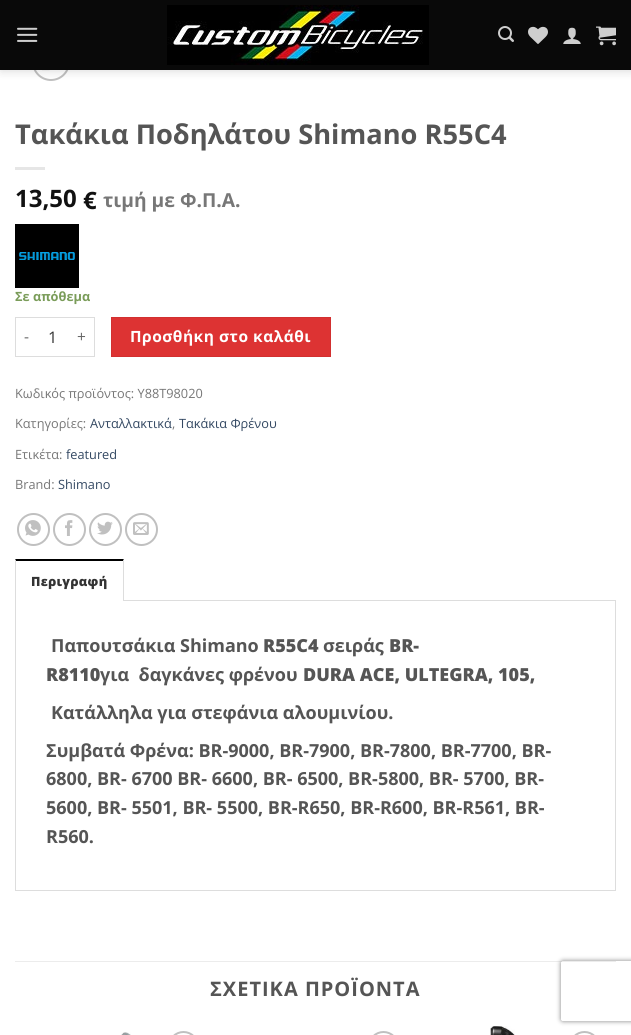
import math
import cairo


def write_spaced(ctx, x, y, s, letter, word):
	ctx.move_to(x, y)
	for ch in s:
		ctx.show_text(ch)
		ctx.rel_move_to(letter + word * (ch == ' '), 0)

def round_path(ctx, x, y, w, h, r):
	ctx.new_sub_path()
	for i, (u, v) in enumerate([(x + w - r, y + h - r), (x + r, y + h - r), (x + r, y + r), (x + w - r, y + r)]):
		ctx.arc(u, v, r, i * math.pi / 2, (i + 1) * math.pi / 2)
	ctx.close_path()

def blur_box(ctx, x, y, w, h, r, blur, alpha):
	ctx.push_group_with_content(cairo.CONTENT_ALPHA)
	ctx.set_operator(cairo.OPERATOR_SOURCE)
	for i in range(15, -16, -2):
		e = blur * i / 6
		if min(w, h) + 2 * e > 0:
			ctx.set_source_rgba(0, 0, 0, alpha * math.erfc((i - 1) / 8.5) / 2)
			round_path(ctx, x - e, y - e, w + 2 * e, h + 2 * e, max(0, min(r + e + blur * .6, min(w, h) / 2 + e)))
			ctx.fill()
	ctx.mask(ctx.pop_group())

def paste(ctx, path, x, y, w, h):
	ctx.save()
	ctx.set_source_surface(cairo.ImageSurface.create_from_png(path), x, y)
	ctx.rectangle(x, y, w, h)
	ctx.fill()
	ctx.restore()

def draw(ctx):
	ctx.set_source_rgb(1, 1, 1)
	ctx.paint()
	ctx.arc(51, 62, 18, 0, 2 * math.pi)
	ctx.set_source_rgb(0.753, 0.753, 0.753)
	ctx.stroke()
	paste(ctx, 'media/7.png', 42, 70, 8, 1)
	ctx.set_source_rgb(0, 0, 0)
	blur_box(ctx, 1, 1, 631, 70, 0, 5, 0.15)
	ctx.set_source_rgb(0.039, 0.039, 0.039)
	ctx.rectangle(0, 0, 631, 70)
	ctx.fill()
	paste(ctx, 'media/1.png', 17, 27, 21, 15)
	paste(ctx, 'media/2.png', 167, 5, 262, 60)
	paste(ctx, 'media/3.png', 498, 26, 16, 16)
	paste(ctx, 'media/4.png', 528, 26, 20, 18)
	paste(ctx, 'media/5.png', 563, 27, 18, 17)
	paste(ctx, 'media/6.png', 596, 26, 20, 20)
	ctx.select_font_face('Open Sans', cairo.FONT_SLANT_NORMAL, cairo.FONT_WEIGHT_BOLD)
	ctx.set_font_size(27.25)
	ctx.set_source_rgb(0.333, 0.333, 0.333)
	ctx.move_to(15, 144)
	ctx.show_text('Τακάκια Ποδηλάτου Shimano R55C4')
	ctx.set_source_rgb(0.902, 0.902, 0.902)
	ctx.rectangle(15, 167, 30, 3)
	ctx.fill()
	ctx.set_font_size(24)
	ctx.set_source_rgb(0.067, 0.067, 0.067)
	ctx.move_to(15, 207)
	ctx.show_text('13,50')
	ctx.move_to(83, 209)
	ctx.show_text('€')
	ctx.set_font_size(19.25)
	ctx.set_source_rgb(0.467, 0.467, 0.467)
	ctx.move_to(103, 207)
	ctx.show_text('τιμή με Φ.Π.Α.')
	paste(ctx, 'media/8.png', 15, 224, 64, 64)
	ctx.set_font_size(12.75)
	ctx.set_source_rgb(0.478, 0.612, 0.349)
	ctx.move_to(15, 301)
	ctx.show_text('Σε απόθεμα')
	ctx.set_source_rgb(0.867, 0.867, 0.867)
	ctx.rectangle(15, 317, 80, 1)
	ctx.rectangle(15, 356, 54, 1)
	ctx.rectangle(15, 317, 1, 40)
	ctx.fill()
	ctx.select_font_face('Open Sans')
	ctx.set_font_size(15.5)
	ctx.set_source_rgb(0.4, 0.4, 0.4)
	write_spaced(ctx, 24, 342, '-', 0.5, 0)
	ctx.set_font_size(16)
	ctx.set_source_rgb(0.2, 0.2, 0.2)
	ctx.move_to(48, 343)
	ctx.show_text('1')
	ctx.set_source_rgb(0.867, 0.867, 0.867)
	ctx.rectangle(94, 317, 1, 40)
	ctx.fill()
	ctx.rectangle(69, 356, 26, 1)
	ctx.fill()
	ctx.set_font_size(15.5)
	ctx.set_source_rgb(0.4, 0.4, 0.4)
	write_spaced(ctx, 77, 342, '+', 0.5, 0)
	ctx.set_source_rgb(0.867, 0.2, 0.2)
	ctx.rectangle(111.5, 317.5, 219, 39)
	ctx.fill_preserve()
	ctx.set_source_rgb(0.824, 0.188, 0.188)
	ctx.set_line_width(1)
	ctx.stroke()
	ctx.select_font_face('Open Sans', cairo.FONT_SLANT_NORMAL, cairo.FONT_WEIGHT_BOLD)
	ctx.set_source_rgb(1, 1, 1)
	write_spaced(ctx, 130, 342, 'Προσθήκη στο καλάθι', 0.5, 0)
	ctx.select_font_face('Open Sans')
	ctx.set_font_size(12.75)
	ctx.set_source_rgb(0.467, 0.467, 0.467)
	ctx.move_to(15, 398)
	ctx.show_text('Κωδικός προϊόντος: Y88T98020')
	ctx.move_to(15, 428)
	ctx.show_text('Κατηγορίες:')
	ctx.set_source_rgb(0.2, 0.282, 0.384)
	ctx.move_to(90, 428)
	ctx.show_text('Ανταλλακτικά')
	ctx.set_source_rgb(0.467, 0.467, 0.467)
	ctx.move_to(172, 428)
	ctx.show_text(',')
	ctx.set_source_rgb(0.2, 0.282, 0.384)
	ctx.move_to(179, 428)
	ctx.show_text('Τακάκια Φρένου')
	ctx.set_source_rgb(0.467, 0.467, 0.467)
	ctx.move_to(15, 459)
	ctx.show_text('Ετικέτα:')
	ctx.set_source_rgb(0.2, 0.282, 0.384)
	ctx.move_to(66, 459)
	ctx.show_text('featured')
	ctx.set_source_rgb(0.467, 0.467, 0.467)
	ctx.move_to(15, 489)
	ctx.show_text('Brand:')
	ctx.set_source_rgb(0.2, 0.282, 0.384)
	ctx.move_to(58, 489)
	ctx.show_text('Shimano')
	ctx.new_path()
	ctx.arc(33.5, 529.5, 15.5, 0, 2 * math.pi)
	ctx.set_source_rgb(0.753, 0.753, 0.753)
	ctx.set_line_width(2)
	ctx.stroke()
	paste(ctx, 'media/9.png', 25, 520, 16, 16)
	ctx.arc(69.5, 529.5, 15.5, 0, 2 * math.pi)
	ctx.stroke()
	paste(ctx, 'media/10.png', 65, 520, 8, 16)
	ctx.arc(105.5, 529.5, 15.5, 0, 2 * math.pi)
	ctx.stroke()
	paste(ctx, 'media/11.png', 97, 521, 16, 14)
	ctx.arc(141.5, 529.5, 15.5, 0, 2 * math.pi)
	ctx.stroke()
	paste(ctx, 'media/12.png', 133, 522, 16, 13)
	ctx.rectangle(15.5, 600.5, 600, 290)
	ctx.set_source_rgb(0.867, 0.867, 0.867)
	ctx.set_line_width(1)
	ctx.stroke()
	ctx.set_source_rgb(1, 1, 1)
	ctx.rectangle(15, 600, 109, 1)
	ctx.fill()
	ctx.set_source_rgb(0, 0, 0)
	ctx.new_path()
	ctx.move_to(15, 559)
	ctx.line_to(124, 559)
	ctx.line_to(123, 561)
	ctx.line_to(16, 561)
	ctx.close_path()
	ctx.fill()
	ctx.set_source_rgb(0.867, 0.867, 0.867)
	ctx.new_path()
	ctx.move_to(124, 559)
	ctx.line_to(124, 601)
	ctx.line_to(123, 601)
	ctx.line_to(123, 561)
	ctx.close_path()
	ctx.fill()
	ctx.new_path()
	ctx.move_to(15, 601)
	ctx.line_to(15, 559)
	ctx.line_to(16, 561)
	ctx.line_to(16, 601)
	ctx.close_path()
	ctx.fill()
	ctx.select_font_face('Open Sans ExtraBold')
	ctx.set_source_rgb(0.2, 0.2, 0.2)
	write_spaced(ctx, 31, 586, 'Περιγραφή', 0.25, 0)
	ctx.select_font_face('Open Sans', cairo.FONT_SLANT_NORMAL, cairo.FONT_WEIGHT_BOLD)
	ctx.set_font_size(18)
	ctx.set_source_rgb(0.333, 0.333, 0.333)
	ctx.move_to(51, 652)
	ctx.show_text('Παπουτσάκια Shimano')
	ctx.select_font_face('Open Sans ExtraBold')
	ctx.move_to(263, 652)
	ctx.show_text('R55C4')
	ctx.select_font_face('Open Sans', cairo.FONT_SLANT_NORMAL, cairo.FONT_WEIGHT_BOLD)
	ctx.move_to(323, 652)
	ctx.show_text('σειράς')
	ctx.select_font_face('Open Sans ExtraBold')
	ctx.move_to(389, 652)
	ctx.show_text('BR-')
	ctx.move_to(46, 681)
	ctx.show_text('R8110')
	ctx.select_font_face('Open Sans', cairo.FONT_SLANT_NORMAL, cairo.FONT_WEIGHT_BOLD)
	ctx.move_to(100, 681)
	ctx.show_text('για  δαγκάνες φρένου')
	ctx.select_font_face('Open Sans ExtraBold')
	ctx.move_to(303, 681)
	ctx.show_text('DURA ACE, ULTEGRA, 105,')
	ctx.select_font_face('Open Sans', cairo.FONT_SLANT_NORMAL, cairo.FONT_WEIGHT_BOLD)
	for x, y, s in [
		(51, 719, 'Κατάλληλα για στεφάνια αλουμινίου.'),
		(46, 757, 'Συμβατά Φρένα: BR-9000, BR-7900, BR-7800, BR-7700, BR-'),
		(46, 785, '6800, BR- 6700 BR- 6600, BR- 6500, BR-5800, BR- 5700, BR-'),
		(46, 814, '5600, BR- 5501, BR- 5500, BR-R650, BR-R600, BR-R561, BR-'),
		(46, 843, 'R560.'),
	]:
		ctx.move_to(x, y)
		ctx.show_text(s)
	ctx.set_source_rgb(0.925, 0.925, 0.925)
	ctx.rectangle(15, 961, 601, 1)
	ctx.fill()
	ctx.set_font_size(20)
	ctx.set_source_rgb(0.333, 0.333, 0.333)
	write_spaced(ctx, 210, 996, 'ΣΧΕΤΙΚΑ ΠΡΟΪΟΝΤΑ', 1, 0)
	paste(ctx, 'media/13.png', 121, 1032, 10, 3)
	round_path(ctx, 169, 1032, 29, 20, 14.5)
	ctx.set_source_rgb(0.753, 0.753, 0.753)
	ctx.set_line_width(2)
	ctx.stroke()
	round_path(ctx, 369, 1032, 29, 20, 14.5)
	ctx.stroke()
	paste(ctx, 'media/14.png', 490, 1026, 25, 9)
	round_path(ctx, 570, 1032, 29, 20, 14.5)
	ctx.stroke()
	ctx.save()
	ctx.set_fill_rule(cairo.FILL_RULE_EVEN_ODD)
	ctx.new_path()
	ctx.move_to(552, 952)
	ctx.line_to(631, 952)
	ctx.line_to(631, 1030)
	ctx.line_to(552, 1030)
	ctx.close_path()
	ctx.move_to(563, 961)
	ctx.line_to(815, 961)
	ctx.curve_to(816, 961, 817, 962, 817, 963)
	ctx.line_to(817, 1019)
	ctx.curve_to(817, 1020, 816, 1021, 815, 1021)
	ctx.line_to(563, 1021)
	ctx.curve_to(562, 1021, 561, 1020, 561, 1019)
	ctx.line_to(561, 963)
	ctx.curve_to(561, 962, 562, 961, 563, 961)
	ctx.close_path()
	ctx.clip()
	ctx.set_source_rgb(0.502, 0.502, 0.502)
	blur_box(ctx, 561, 961, 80, 60, 2, 2.5, 1)
	ctx.restore()


surface = cairo.ImageSurface(cairo.FORMAT_RGB24, 631, 1035)
ctx = cairo.Context(surface)
options = cairo.FontOptions()
options.set_hint_metrics(cairo.HINT_METRICS_OFF)
options.set_hint_style(cairo.HINT_STYLE_NONE)
ctx.set_font_options(options)
ctx.set_miter_limit(4)
draw(ctx)
surface.write_to_png('image.png')
